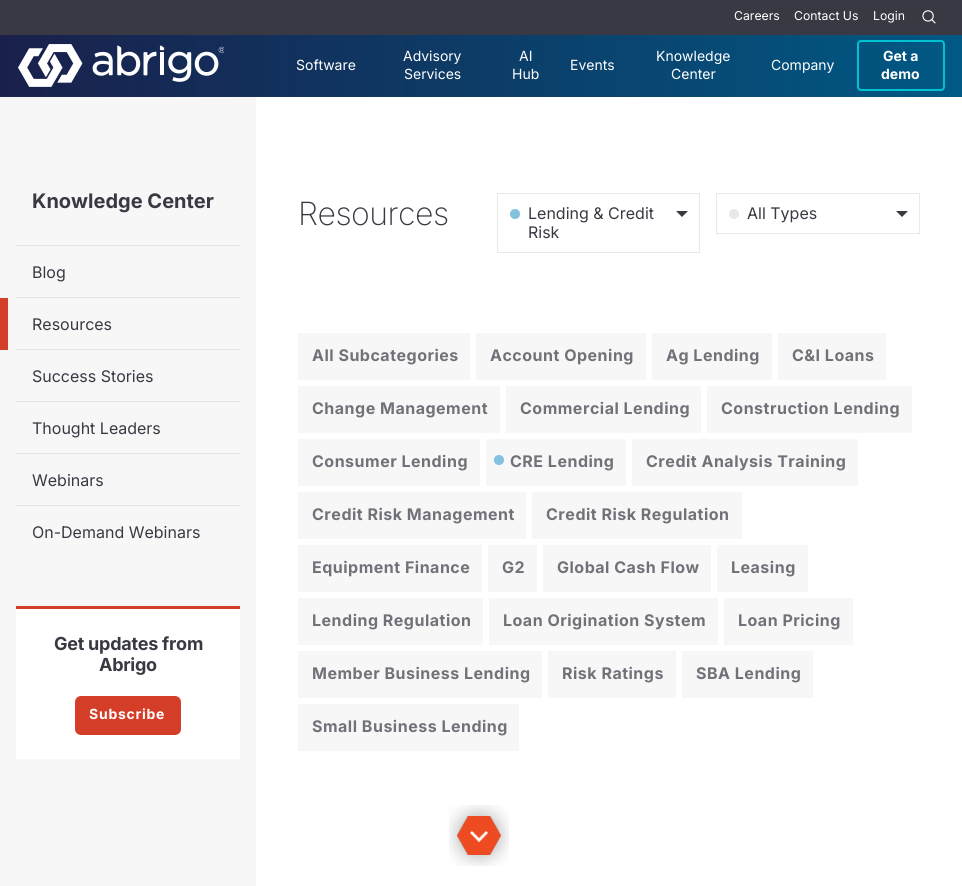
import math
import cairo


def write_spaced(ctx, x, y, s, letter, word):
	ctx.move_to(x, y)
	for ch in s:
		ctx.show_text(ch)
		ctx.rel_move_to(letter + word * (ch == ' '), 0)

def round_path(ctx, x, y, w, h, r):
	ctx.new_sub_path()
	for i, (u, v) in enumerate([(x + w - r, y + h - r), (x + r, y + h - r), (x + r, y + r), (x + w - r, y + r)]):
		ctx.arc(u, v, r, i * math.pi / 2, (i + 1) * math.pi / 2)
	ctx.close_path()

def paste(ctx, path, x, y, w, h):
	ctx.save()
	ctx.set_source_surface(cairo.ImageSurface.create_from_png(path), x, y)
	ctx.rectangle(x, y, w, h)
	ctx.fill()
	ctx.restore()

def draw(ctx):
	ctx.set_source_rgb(1, 1, 1)
	ctx.paint()
	ctx.set_source_rgb(0.22, 0.224, 0.263)
	ctx.rectangle(0, 0, 962, 35)
	ctx.fill()
	ctx.select_font_face('Inter')
	ctx.set_font_size(12.25)
	ctx.set_source_rgb(1, 1, 1)
	for x, y, s in [
		(734, 20, 'Careers'),
		(794, 20, 'Contact Us'),
		(873, 20, 'Login'),
	]:
		ctx.move_to(x, y)
		ctx.show_text(s)
	paste(ctx, 'media/1.png', 922, 10, 14, 14)
	gradient = cairo.LinearGradient(0, 66, 962, 65)
	gradient.add_color_stop_rgba(0, 0.098, 0.125, 0.294, 1)
	gradient.add_color_stop_rgba(1, 0, 0.349, 0.518, 1)
	ctx.set_source(gradient)
	ctx.rectangle(0, 35, 962, 61)
	ctx.fill()
	gradient = cairo.LinearGradient(0, 66, 962, 65)
	gradient.add_color_stop_rgba(0, 0.11, 0.137, 0.29, 1)
	gradient.add_color_stop_rgba(1, 0.024, 0.337, 0.494, 1)
	ctx.set_source(gradient)
	ctx.rectangle(0, 96, 962, 1)
	ctx.fill()
	paste(ctx, 'media/2.png', 18, 44, 206, 43)
	ctx.set_font_size(14)
	ctx.set_source_rgb(1, 1, 1)
	for x, y, s in [
		(296, 70, 'Software'),
		(403, 61, 'Advisory'),
		(404, 79, 'Services'),
		(519, 61, 'AI'),
		(512, 79, 'Hub'),
		(570, 70, 'Events'),
		(656, 61, 'Knowledge'),
		(671, 79, 'Center'),
		(771, 70, 'Company'),
	]:
		ctx.move_to(x, y)
		ctx.show_text(s)
	round_path(ctx, 858, 41, 86, 49, 3)
	ctx.set_source_rgb(0, 0.761, 0.82)
	ctx.stroke()
	ctx.select_font_face('Inter', cairo.FONT_SLANT_NORMAL, cairo.FONT_WEIGHT_BOLD)
	ctx.set_source_rgb(1, 1, 1)
	ctx.move_to(883, 61)
	ctx.show_text('Get a')
	ctx.move_to(881, 79)
	ctx.show_text('demo')
	ctx.set_source_rgb(0.965, 0.965, 0.965)
	ctx.rectangle(0, 97, 256, 789)
	ctx.fill()
	ctx.set_font_size(20)
	ctx.set_source_rgb(0.22, 0.224, 0.263)
	ctx.move_to(32, 208)
	ctx.show_text('Knowledge Center')
	ctx.set_source_rgb(0.89, 0.89, 0.894)
	ctx.rectangle(16, 245, 224, 1)
	ctx.fill()
	ctx.select_font_face('Inter')
	ctx.set_font_size(16)
	ctx.set_source_rgb(0.22, 0.224, 0.263)
	ctx.move_to(32, 278)
	ctx.show_text('Blog')
	ctx.set_source_rgb(0.89, 0.89, 0.894)
	ctx.rectangle(16, 297, 224, 1)
	ctx.fill()
	ctx.set_source_rgb(0.831, 0.243, 0.157)
	ctx.rectangle(0, 298, 8, 52)
	ctx.fill()
	ctx.set_source_rgb(0.22, 0.224, 0.263)
	ctx.move_to(32, 330)
	ctx.show_text('Resources')
	ctx.set_source_rgb(0.89, 0.89, 0.894)
	ctx.rectangle(16, 349, 224, 1)
	ctx.fill()
	ctx.set_source_rgb(0.22, 0.224, 0.263)
	ctx.move_to(32, 382)
	ctx.show_text('Success Stories')
	ctx.set_source_rgb(0.89, 0.89, 0.894)
	ctx.rectangle(16, 401, 224, 1)
	ctx.fill()
	ctx.set_source_rgb(0.22, 0.224, 0.263)
	ctx.move_to(32, 434)
	ctx.show_text('Thought Leaders')
	ctx.set_source_rgb(0.89, 0.89, 0.894)
	ctx.rectangle(16, 453, 224, 1)
	ctx.fill()
	ctx.set_source_rgb(0.22, 0.224, 0.263)
	ctx.move_to(32, 486)
	ctx.show_text('Webinars')
	ctx.set_source_rgb(0.89, 0.89, 0.894)
	ctx.rectangle(16, 505, 224, 1)
	ctx.fill()
	ctx.set_source_rgb(0.22, 0.224, 0.263)
	ctx.move_to(32, 538)
	ctx.show_text('On-Demand Webinars')
	ctx.set_source_rgb(1, 1, 1)
	ctx.rectangle(16, 609, 224, 150)
	ctx.fill()
	ctx.set_source_rgb(0.831, 0.243, 0.157)
	ctx.rectangle(16, 606, 224, 3)
	ctx.fill()
	ctx.select_font_face('Inter', cairo.FONT_SLANT_NORMAL, cairo.FONT_WEIGHT_BOLD)
	ctx.set_font_size(18)
	ctx.set_source_rgb(0.22, 0.224, 0.263)
	write_spaced(ctx, 54, 650, 'Get updates from', -0.25, 0)
	write_spaced(ctx, 99, 671, 'Abrigo', -0.25, 0)
	ctx.set_source_rgb(0.831, 0.243, 0.157)
	round_path(ctx, 75, 696, 106, 39, 6)
	ctx.fill()
	ctx.set_font_size(14)
	ctx.set_source_rgb(1, 1, 1)
	write_spaced(ctx, 89, 719, 'Subscribe', 0.75, 0)
	ctx.select_font_face('Inter ExtraLight')
	ctx.set_font_size(32)
	ctx.set_source_rgb(0.22, 0.224, 0.263)
	write_spaced(ctx, 298, 225, 'Resources', -0.5, 0)
	ctx.rectangle(497.5, 193.5, 202, 59)
	ctx.set_source_rgb(0.914, 0.914, 0.914)
	ctx.set_line_width(1)
	ctx.stroke()
	ctx.set_source_rgb(0.51, 0.761, 0.875)
	ctx.arc(515, 214, 5, 0, 2 * math.pi)
	ctx.fill()
	ctx.select_font_face('Inter')
	ctx.set_font_size(16)
	ctx.set_source_rgb(0.22, 0.224, 0.263)
	ctx.move_to(528, 219)
	ctx.show_text('Lending & Credit')
	ctx.move_to(528, 238)
	ctx.show_text('Risk')
	ctx.new_path()
	ctx.move_to(676, 211)
	ctx.line_to(688, 211)
	ctx.line_to(682, 217)
	ctx.close_path()
	ctx.fill()
	ctx.rectangle(716.5, 193.5, 203, 40)
	ctx.set_source_rgb(0.914, 0.914, 0.914)
	ctx.stroke()
	ctx.arc(734, 214, 5, 0, 2 * math.pi)
	ctx.fill()
	ctx.set_source_rgb(0.22, 0.224, 0.263)
	ctx.move_to(747, 219)
	ctx.show_text('All Types')
	ctx.new_path()
	ctx.move_to(896, 211)
	ctx.line_to(908, 211)
	ctx.line_to(902, 217)
	ctx.close_path()
	ctx.fill()
	ctx.set_source_rgb(0.965, 0.965, 0.965)
	ctx.rectangle(298, 333, 172, 47)
	ctx.fill()
	ctx.select_font_face('Inter', cairo.FONT_SLANT_NORMAL, cairo.FONT_WEIGHT_BOLD)
	ctx.set_source_rgb(0.443, 0.447, 0.475)
	write_spaced(ctx, 312, 361, 'All Subcategories', 0.5, 0)
	ctx.set_source_rgb(0.965, 0.965, 0.965)
	ctx.rectangle(476, 333, 170, 47)
	ctx.fill()
	ctx.set_source_rgb(0.443, 0.447, 0.475)
	write_spaced(ctx, 490, 361, 'Account Opening', 0.5, 0)
	ctx.set_source_rgb(0.965, 0.965, 0.965)
	ctx.rectangle(652, 333, 120, 47)
	ctx.fill()
	ctx.set_source_rgb(0.443, 0.447, 0.475)
	write_spaced(ctx, 666, 361, 'Ag Lending', 0.5, 0)
	ctx.set_source_rgb(0.965, 0.965, 0.965)
	ctx.rectangle(778, 333, 108, 47)
	ctx.fill()
	ctx.set_source_rgb(0.443, 0.447, 0.475)
	write_spaced(ctx, 792, 361, 'C&I Loans', 0.5, 0)
	ctx.set_source_rgb(0.965, 0.965, 0.965)
	ctx.rectangle(298, 386, 202, 47)
	ctx.fill()
	ctx.set_source_rgb(0.443, 0.447, 0.475)
	write_spaced(ctx, 312, 414, 'Change Management', 0.5, 0)
	ctx.set_source_rgb(0.965, 0.965, 0.965)
	ctx.rectangle(506, 386, 195, 47)
	ctx.fill()
	ctx.set_source_rgb(0.443, 0.447, 0.475)
	write_spaced(ctx, 520, 414, 'Commercial Lending', 0.5, 0)
	ctx.set_source_rgb(0.965, 0.965, 0.965)
	ctx.rectangle(707, 386, 205, 47)
	ctx.fill()
	ctx.set_source_rgb(0.443, 0.447, 0.475)
	write_spaced(ctx, 721, 414, 'Construction Lending', 0.5, 0)
	ctx.set_source_rgb(0.965, 0.965, 0.965)
	ctx.rectangle(298, 439, 182, 47)
	ctx.fill()
	ctx.set_source_rgb(0.443, 0.447, 0.475)
	write_spaced(ctx, 312, 467, 'Consumer Lending', 0.5, 0)
	ctx.set_source_rgb(0.965, 0.965, 0.965)
	ctx.rectangle(486, 439, 140, 47)
	ctx.fill()
	ctx.set_source_rgb(0.51, 0.761, 0.875)
	ctx.arc(499, 460, 5, 0, 2 * math.pi)
	ctx.fill()
	ctx.set_source_rgb(0.443, 0.447, 0.475)
	write_spaced(ctx, 510, 467, 'CRE Lending', 0.5, 0)
	ctx.set_source_rgb(0.965, 0.965, 0.965)
	ctx.rectangle(632, 439, 226, 47)
	ctx.fill()
	ctx.set_source_rgb(0.443, 0.447, 0.475)
	write_spaced(ctx, 646, 467, 'Credit Analysis Training', 0.5, 0)
	ctx.set_source_rgb(0.965, 0.965, 0.965)
	ctx.rectangle(298, 492, 228, 47)
	ctx.fill()
	ctx.set_source_rgb(0.443, 0.447, 0.475)
	write_spaced(ctx, 312, 520, 'Credit Risk Management', 0.5, 0)
	ctx.set_source_rgb(0.965, 0.965, 0.965)
	ctx.rectangle(532, 492, 210, 47)
	ctx.fill()
	ctx.set_source_rgb(0.443, 0.447, 0.475)
	write_spaced(ctx, 546, 520, 'Credit Risk Regulation', 0.5, 0)
	ctx.set_source_rgb(0.965, 0.965, 0.965)
	ctx.rectangle(298, 545, 184, 47)
	ctx.fill()
	ctx.set_source_rgb(0.443, 0.447, 0.475)
	write_spaced(ctx, 312, 573, 'Equipment Finance', 0.5, 0)
	ctx.set_source_rgb(0.965, 0.965, 0.965)
	ctx.rectangle(488, 545, 49, 47)
	ctx.fill()
	ctx.set_source_rgb(0.443, 0.447, 0.475)
	write_spaced(ctx, 502, 573, 'G2', 0.5, 0)
	ctx.set_source_rgb(0.965, 0.965, 0.965)
	ctx.rectangle(543, 545, 168, 47)
	ctx.fill()
	ctx.set_source_rgb(0.443, 0.447, 0.475)
	write_spaced(ctx, 557, 573, 'Global Cash Flow', 0.5, 0)
	ctx.set_source_rgb(0.965, 0.965, 0.965)
	ctx.rectangle(717, 545, 91, 47)
	ctx.fill()
	ctx.set_source_rgb(0.443, 0.447, 0.475)
	write_spaced(ctx, 731, 573, 'Leasing', 0.5, 0)
	ctx.set_source_rgb(0.965, 0.965, 0.965)
	ctx.rectangle(298, 598, 185, 47)
	ctx.fill()
	ctx.set_source_rgb(0.443, 0.447, 0.475)
	write_spaced(ctx, 312, 626, 'Lending Regulation', 0.5, 0)
	ctx.set_source_rgb(0.965, 0.965, 0.965)
	ctx.rectangle(489, 598, 229, 47)
	ctx.fill()
	ctx.set_source_rgb(0.443, 0.447, 0.475)
	write_spaced(ctx, 503, 626, 'Loan Origination System', 0.5, 0)
	ctx.set_source_rgb(0.965, 0.965, 0.965)
	ctx.rectangle(724, 598, 129, 47)
	ctx.fill()
	ctx.set_source_rgb(0.443, 0.447, 0.475)
	write_spaced(ctx, 738, 626, 'Loan Pricing', 0.5, 0)
	ctx.set_source_rgb(0.965, 0.965, 0.965)
	ctx.rectangle(298, 651, 244, 47)
	ctx.fill()
	ctx.set_source_rgb(0.443, 0.447, 0.475)
	write_spaced(ctx, 312, 679, 'Member Business Lending', 0.5, 0)
	ctx.set_source_rgb(0.965, 0.965, 0.965)
	ctx.rectangle(548, 651, 128, 47)
	ctx.fill()
	ctx.set_source_rgb(0.443, 0.447, 0.475)
	write_spaced(ctx, 562, 679, 'Risk Ratings', 0.5, 0)
	ctx.set_source_rgb(0.965, 0.965, 0.965)
	ctx.rectangle(682, 651, 131, 47)
	ctx.fill()
	ctx.set_source_rgb(0.443, 0.447, 0.475)
	write_spaced(ctx, 696, 679, 'SBA Lending', 0.5, 0)
	ctx.set_source_rgb(0.965, 0.965, 0.965)
	ctx.rectangle(298, 704, 221, 47)
	ctx.fill()
	ctx.set_source_rgb(0.443, 0.447, 0.475)
	write_spaced(ctx, 312, 732, 'Small Business Lending', 0.5, 0)
	paste(ctx, 'media/3.png', 449, 805, 60, 61)
	paste(ctx, 'media/4.png', 449, 805, 60, 61)


surface = cairo.ImageSurface(cairo.FORMAT_RGB24, 962, 886)
ctx = cairo.Context(surface)
options = cairo.FontOptions()
options.set_hint_metrics(cairo.HINT_METRICS_OFF)
options.set_hint_style(cairo.HINT_STYLE_NONE)
ctx.set_font_options(options)
ctx.set_miter_limit(4)
draw(ctx)
surface.write_to_png('image.png')
